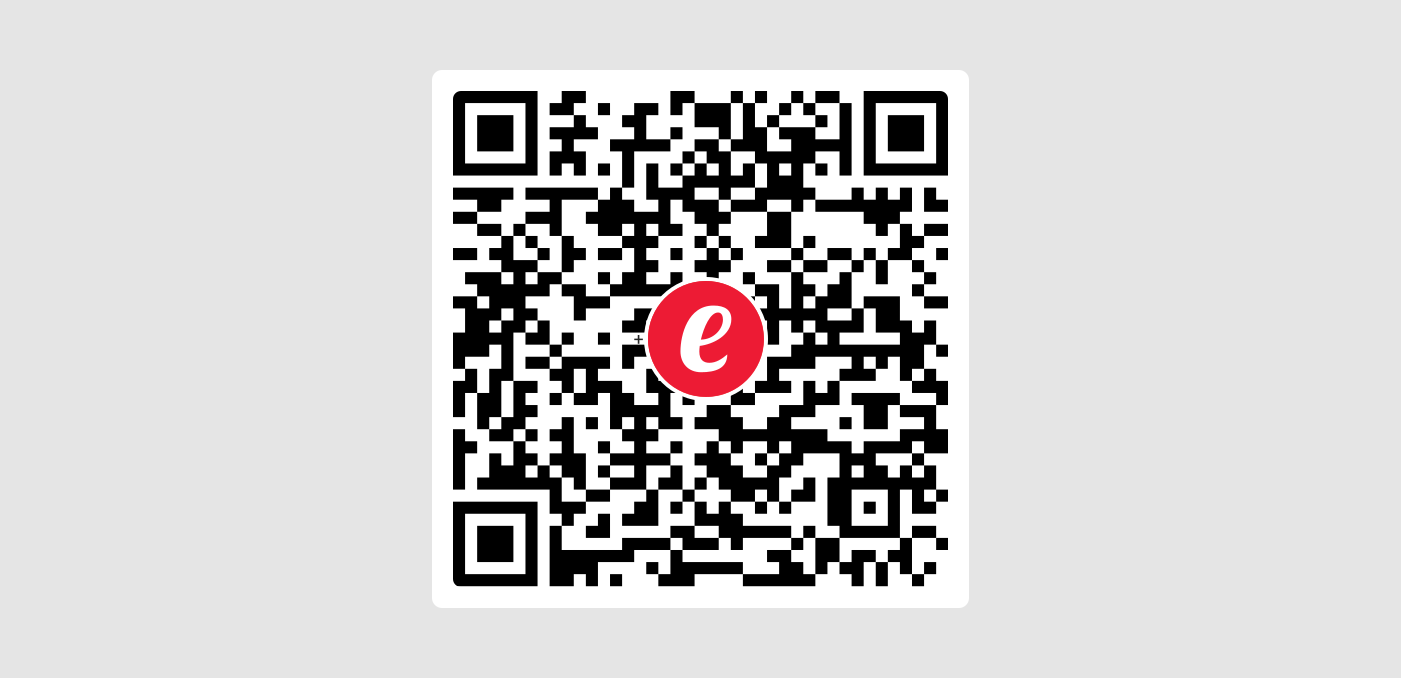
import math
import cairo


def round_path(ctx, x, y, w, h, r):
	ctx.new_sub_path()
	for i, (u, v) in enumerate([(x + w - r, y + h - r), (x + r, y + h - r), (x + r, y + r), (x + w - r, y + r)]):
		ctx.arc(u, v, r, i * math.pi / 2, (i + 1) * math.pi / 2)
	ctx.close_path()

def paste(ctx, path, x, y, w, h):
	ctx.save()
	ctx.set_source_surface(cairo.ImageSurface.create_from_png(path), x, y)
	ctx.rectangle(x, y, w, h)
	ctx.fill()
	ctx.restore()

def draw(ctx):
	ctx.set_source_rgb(0.898, 0.898, 0.898)
	ctx.paint()
	ctx.set_source_rgb(1, 1, 1)
	round_path(ctx, 432, 70, 537, 538, 10)
	ctx.fill()
	paste(ctx, 'media/1.png', 453, 91, 495, 496)
	ctx.select_font_face('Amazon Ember')
	ctx.set_font_size(19)
	ctx.set_source_rgb(0.149, 0.149, 0.149)
	ctx.move_to(633, 346)
	ctx.show_text('+')
	ctx.set_source_rgb(0.937, 0.267, 0.267)
	ctx.new_path()
	ctx.arc(706, 339, 60, 0, 2 * math.pi)
	ctx.fill_preserve()
	ctx.set_source_rgb(1, 1, 1)
	ctx.set_line_width(4)
	ctx.stroke()
	paste(ctx, 'media/2.png', 648, 281, 116, 116)


surface = cairo.ImageSurface(cairo.FORMAT_RGB24, 1401, 678)
ctx = cairo.Context(surface)
options = cairo.FontOptions()
options.set_hint_metrics(cairo.HINT_METRICS_OFF)
options.set_hint_style(cairo.HINT_STYLE_NONE)
ctx.set_font_options(options)
ctx.set_miter_limit(4)
draw(ctx)
surface.write_to_png('image.png')
